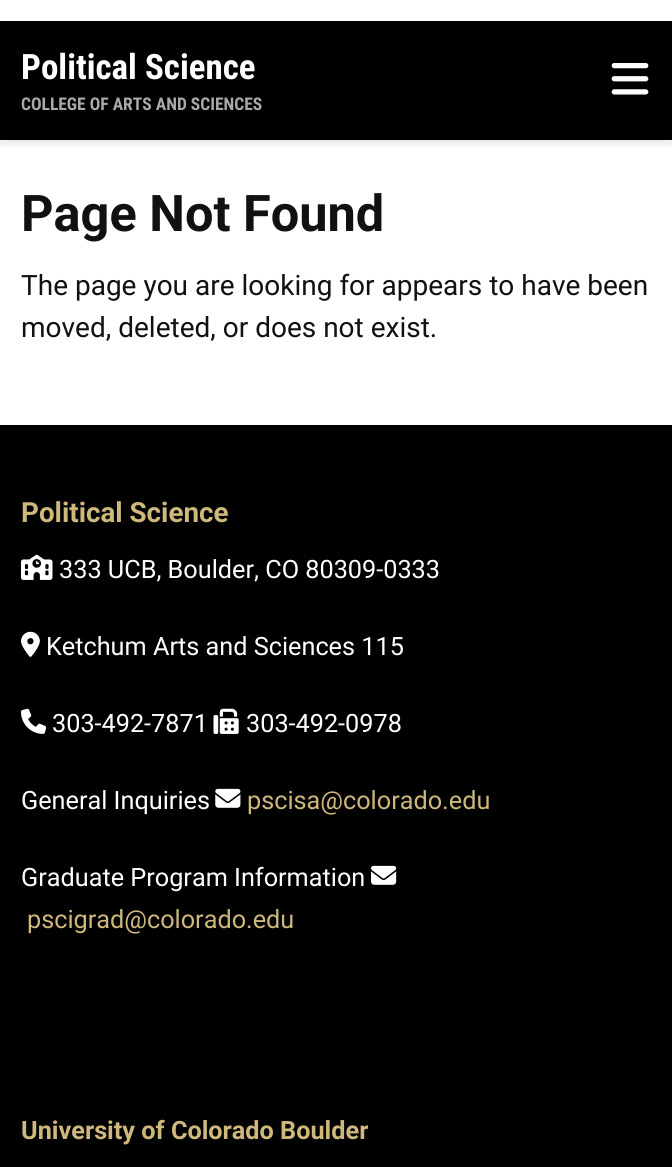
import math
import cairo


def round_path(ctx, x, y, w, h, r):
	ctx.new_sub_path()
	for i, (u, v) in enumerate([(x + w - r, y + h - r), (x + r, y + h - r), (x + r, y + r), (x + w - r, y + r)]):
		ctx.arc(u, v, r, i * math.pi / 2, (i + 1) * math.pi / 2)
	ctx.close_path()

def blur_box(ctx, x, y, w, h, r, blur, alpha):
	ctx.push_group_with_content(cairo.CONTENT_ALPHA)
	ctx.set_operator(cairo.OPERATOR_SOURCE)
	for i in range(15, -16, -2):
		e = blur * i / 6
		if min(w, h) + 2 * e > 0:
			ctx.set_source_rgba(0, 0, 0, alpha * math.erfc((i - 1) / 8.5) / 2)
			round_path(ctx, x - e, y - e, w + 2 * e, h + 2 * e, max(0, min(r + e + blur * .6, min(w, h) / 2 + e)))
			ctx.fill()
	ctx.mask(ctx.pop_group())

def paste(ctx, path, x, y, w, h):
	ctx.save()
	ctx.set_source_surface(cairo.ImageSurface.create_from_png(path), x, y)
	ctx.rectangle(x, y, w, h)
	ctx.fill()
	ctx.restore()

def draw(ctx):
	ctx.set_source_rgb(1, 1, 1)
	ctx.paint()
	ctx.save()
	ctx.rectangle(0, 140, 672, 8)
	ctx.clip()
	ctx.set_source_rgb(0, 0, 0)
	blur_box(ctx, 0, -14, 672, 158, 0, 4.5, 0.1)
	ctx.restore()
	ctx.set_source_rgb(0, 0, 0)
	ctx.rectangle(0, 21, 672, 119)
	ctx.fill()
	ctx.select_font_face('Roboto Condensed', cairo.FONT_SLANT_NORMAL, cairo.FONT_WEIGHT_BOLD)
	ctx.set_font_size(35)
	ctx.set_source_rgb(1, 1, 1)
	ctx.move_to(21, 79)
	ctx.show_text('Political Science')
	ctx.set_font_size(17.5)
	ctx.set_source_rgb(0.667, 0.667, 0.667)
	ctx.move_to(21, 110)
	ctx.show_text('COLLEGE OF ARTS AND SCIENCES')
	paste(ctx, 'media/1.png', 611, 63, 38, 32)
	ctx.select_font_face('Roboto', cairo.FONT_SLANT_NORMAL, cairo.FONT_WEIGHT_BOLD)
	ctx.set_font_size(50.5)
	ctx.set_source_rgb(0.067, 0.067, 0.067)
	ctx.move_to(21, 231)
	ctx.show_text('Page Not Found')
	ctx.select_font_face('Roboto')
	ctx.set_font_size(28)
	ctx.move_to(21, 295)
	ctx.show_text('The page you are looking for appears to have been')
	ctx.move_to(21, 337)
	ctx.show_text('moved, deleted, or does not exist.')
	ctx.set_source_rgb(0, 0, 0)
	ctx.rectangle(0, 425, 672, 742)
	ctx.fill()
	ctx.select_font_face('Roboto', cairo.FONT_SLANT_NORMAL, cairo.FONT_WEIGHT_BOLD)
	ctx.set_font_size(27.75)
	ctx.set_source_rgb(0.812, 0.722, 0.486)
	ctx.move_to(21, 522)
	ctx.show_text('Political Science')
	paste(ctx, 'media/2.png', 21, 554, 32, 26)
	ctx.select_font_face('Roboto')
	ctx.set_font_size(25.25)
	ctx.set_source_rgb(1, 1, 1)
	ctx.move_to(59, 578)
	ctx.show_text('333 UCB, Boulder, CO 80309-0333')
	paste(ctx, 'media/3.png', 21, 631, 19, 26)
	ctx.move_to(46, 655)
	ctx.show_text('Ketchum Arts and Sciences 115')
	paste(ctx, 'media/4.png', 21, 708, 26, 26)
	ctx.move_to(52, 732)
	ctx.show_text('303-492-7871')
	paste(ctx, 'media/5.png', 213, 708, 26, 26)
	ctx.move_to(246, 732)
	ctx.show_text('303-492-0978')
	ctx.move_to(21, 809)
	ctx.show_text('General Inquiries')
	paste(ctx, 'media/6.png', 215, 788, 26, 20)
	ctx.set_source_rgb(0.812, 0.722, 0.486)
	ctx.move_to(247, 809)
	ctx.show_text('pscisa@colorado.edu')
	ctx.set_source_rgb(1, 1, 1)
	ctx.move_to(21, 886)
	ctx.show_text('Graduate Program Information')
	paste(ctx, 'media/7.png', 371, 865, 26, 20)
	ctx.set_source_rgb(0.812, 0.722, 0.486)
	ctx.move_to(27, 928)
	ctx.show_text('pscigrad@colorado.edu')
	ctx.select_font_face('Roboto', cairo.FONT_SLANT_NORMAL, cairo.FONT_WEIGHT_BOLD)
	ctx.move_to(21, 1139)
	ctx.show_text('University of Colorado Boulder')


surface = cairo.ImageSurface(cairo.FORMAT_RGB24, 672, 1167)
ctx = cairo.Context(surface)
options = cairo.FontOptions()
options.set_hint_metrics(cairo.HINT_METRICS_OFF)
options.set_hint_style(cairo.HINT_STYLE_NONE)
ctx.set_font_options(options)
ctx.set_miter_limit(4)
draw(ctx)
surface.write_to_png('image.png')
